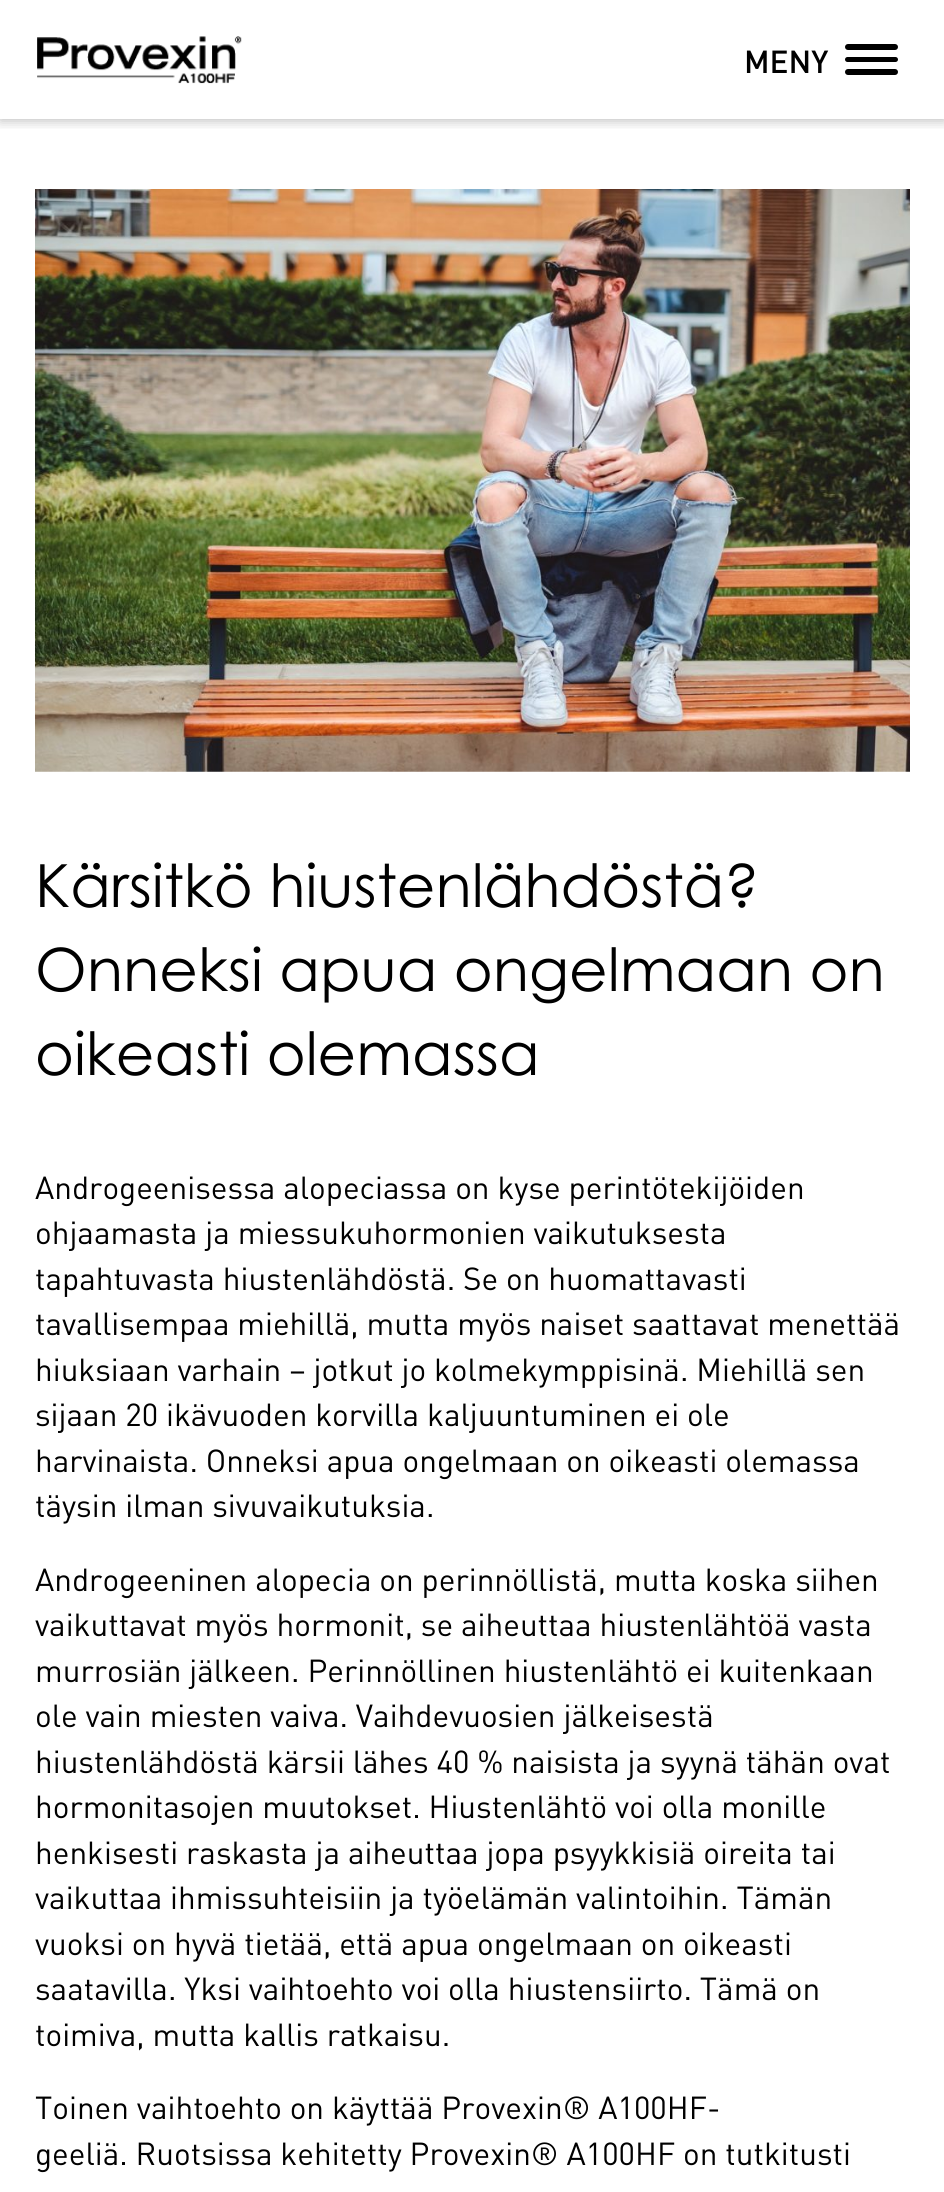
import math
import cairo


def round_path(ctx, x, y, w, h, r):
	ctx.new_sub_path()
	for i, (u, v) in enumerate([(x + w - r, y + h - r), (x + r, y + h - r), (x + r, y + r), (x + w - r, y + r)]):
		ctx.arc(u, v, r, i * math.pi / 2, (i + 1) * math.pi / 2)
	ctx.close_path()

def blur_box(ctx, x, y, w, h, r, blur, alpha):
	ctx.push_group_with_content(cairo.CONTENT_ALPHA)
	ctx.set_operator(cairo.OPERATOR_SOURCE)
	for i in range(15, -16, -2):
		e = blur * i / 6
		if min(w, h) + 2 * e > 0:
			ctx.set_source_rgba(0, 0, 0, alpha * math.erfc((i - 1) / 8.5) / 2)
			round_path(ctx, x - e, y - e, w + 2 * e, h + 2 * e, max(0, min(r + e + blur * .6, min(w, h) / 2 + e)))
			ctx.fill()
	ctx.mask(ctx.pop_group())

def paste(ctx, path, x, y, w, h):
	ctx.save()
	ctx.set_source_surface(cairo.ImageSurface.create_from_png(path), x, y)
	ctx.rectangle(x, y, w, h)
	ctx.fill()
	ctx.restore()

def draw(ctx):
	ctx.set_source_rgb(1, 1, 1)
	ctx.paint()
	ctx.save()
	ctx.rectangle(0, 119, 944, 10)
	ctx.clip()
	ctx.set_source_rgb(0, 0, 0)
	blur_box(ctx, 0, 2, 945, 119, 0, 6, 0.25)
	ctx.restore()
	paste(ctx, 'media/1.png', 37, 36, 205, 48)
	ctx.select_font_face('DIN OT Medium')
	ctx.set_font_size(31.5)
	ctx.set_source_rgb(0, 0, 0)
	ctx.move_to(744, 73)
	ctx.show_text('MENY')
	round_path(ctx, 845, 44, 53, 6, 3)
	ctx.fill()
	round_path(ctx, 845, 57, 53, 5, 2.5)
	ctx.fill()
	round_path(ctx, 845, 69, 53, 6, 3)
	ctx.fill()
	paste(ctx, 'media/2.png', 35, 189, 875, 583)
	ctx.select_font_face('Century Gothic')
	ctx.set_font_size(59.5)
	for x, y, s in [
		(35, 907, 'Kärsitkö hiustenlähdöstä?'),
		(35, 991, 'Onneksi apua ongelmaan on'),
		(35, 1075, 'oikeasti olemassa'),
	]:
		ctx.move_to(x, y)
		ctx.show_text(s)
	ctx.select_font_face('DIN OT')
	ctx.set_font_size(31.5)
	for x, y, s in [
		(35, 1199, 'Androgeenisessa alopeciassa on kyse perintötekijöiden'),
		(35, 1244, 'ohjaamasta ja miessukuhormonien vaikutuksesta'),
		(35, 1290, 'tapahtuvasta hiustenlähdöstä. Se on huomattavasti'),
		(35, 1335, 'tavallisempaa miehillä, mutta myös naiset saattavat menettää'),
		(35, 1381, 'hiuksiaan varhain – jotkut jo kolmekymppisinä. Miehillä sen'),
		(35, 1426, 'sijaan 20 ikävuoden korvilla kaljuuntuminen ei ole'),
		(35, 1472, 'harvinaista. Onneksi apua ongelmaan on oikeasti olemassa'),
		(35, 1517, 'täysin ilman sivuvaikutuksia.'),
		(35, 1591, 'Androgeeninen alopecia on perinnöllistä, mutta koska siihen'),
		(35, 1636, 'vaikuttavat myös hormonit, se aiheuttaa hiustenlähtöä vasta'),
		(35, 1682, 'murrosiän jälkeen. Perinnöllinen hiustenlähtö ei kuitenkaan'),
		(35, 1727, 'ole vain miesten vaiva. Vaihdevuosien jälkeisestä'),
		(35, 1773, 'hiustenlähdöstä kärsii lähes 40 % naisista ja syynä tähän ovat'),
		(35, 1818, 'hormonitasojen muutokset. Hiustenlähtö voi olla monille'),
		(35, 1864, 'henkisesti raskasta ja aiheuttaa jopa psyykkisiä oireita tai'),
		(35, 1909, 'vaikuttaa ihmissuhteisiin ja työelämän valintoihin. Tämän'),
		(35, 1955, 'vuoksi on hyvä tietää, että apua ongelmaan on oikeasti'),
		(35, 2000, 'saatavilla. Yksi vaihtoehto voi olla hiustensiirto. Tämä on'),
		(35, 2046, 'toimiva, mutta kallis ratkaisu.'),
		(35, 2119, 'Toinen vaihtoehto on käyttää Provexin® A100HF-'),
		(35, 2165, 'geeliä. Ruotsissa kehitetty Provexin® A100HF on tutkitusti'),
	]:
		ctx.move_to(x, y)
		ctx.show_text(s)


surface = cairo.ImageSurface(cairo.FORMAT_RGB24, 944, 2192)
ctx = cairo.Context(surface)
options = cairo.FontOptions()
options.set_hint_metrics(cairo.HINT_METRICS_OFF)
options.set_hint_style(cairo.HINT_STYLE_NONE)
ctx.set_font_options(options)
ctx.set_miter_limit(4)
draw(ctx)
surface.write_to_png('image.png')
